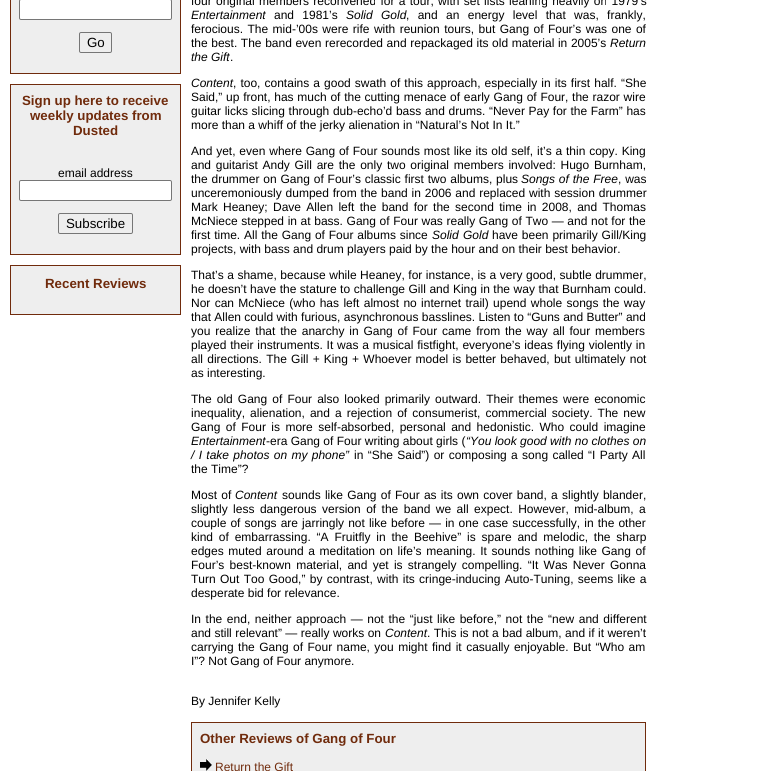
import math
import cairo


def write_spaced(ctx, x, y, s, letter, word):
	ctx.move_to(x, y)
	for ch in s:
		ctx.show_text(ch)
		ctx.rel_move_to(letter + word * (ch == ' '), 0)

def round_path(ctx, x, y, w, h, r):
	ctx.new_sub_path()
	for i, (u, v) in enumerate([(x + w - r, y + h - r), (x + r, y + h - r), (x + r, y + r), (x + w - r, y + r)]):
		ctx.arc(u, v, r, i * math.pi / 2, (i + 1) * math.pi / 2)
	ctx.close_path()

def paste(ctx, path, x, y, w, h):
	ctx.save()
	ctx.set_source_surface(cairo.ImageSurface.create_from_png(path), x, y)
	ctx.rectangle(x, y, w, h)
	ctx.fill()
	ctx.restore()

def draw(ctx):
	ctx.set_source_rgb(1, 1, 1)
	ctx.paint()
	ctx.set_source_rgb(0.439, 0.169, 0.047)
	ctx.rectangle(10, 0, 171, 74)
	ctx.fill()
	ctx.set_source_rgb(0.933, 0.933, 0.933)
	ctx.rectangle(11, 0, 169, 73)
	ctx.fill()
	ctx.set_source_rgb(1, 1, 1)
	round_path(ctx, 19.5, -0.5, 152, 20, 1.5)
	ctx.fill_preserve()
	ctx.set_source_rgb(0.463, 0.463, 0.463)
	ctx.set_line_width(1)
	ctx.stroke()
	round_path(ctx, 79.5, 32.5, 32, 20, 1.5)
	ctx.stroke()
	ctx.select_font_face('Liberation Sans')
	ctx.set_font_size(13.3)
	ctx.set_source_rgb(0, 0, 0)
	ctx.move_to(87, 47)
	ctx.show_text('Go')
	ctx.set_source_rgb(0.439, 0.169, 0.047)
	ctx.rectangle(10, 84, 171, 171)
	ctx.fill()
	ctx.set_source_rgb(0.933, 0.933, 0.933)
	ctx.rectangle(11, 85, 169, 169)
	ctx.fill()
	ctx.select_font_face('Liberation Sans', cairo.FONT_SLANT_NORMAL, cairo.FONT_WEIGHT_BOLD)
	ctx.set_source_rgb(0.439, 0.169, 0.047)
	for x, y, s in [
		(22, 105, 'Sign up here to receive'),
		(30, 120, 'weekly updates from'),
		(73, 135, 'Dusted'),
	]:
		ctx.move_to(x, y)
		ctx.show_text(s)
	ctx.select_font_face('Liberation Sans')
	ctx.set_font_size(12)
	ctx.set_source_rgb(0, 0, 0)
	ctx.move_to(58, 177)
	ctx.show_text('email address')
	ctx.set_source_rgb(1, 1, 1)
	round_path(ctx, 19.5, 180.5, 152, 20, 1.5)
	ctx.fill_preserve()
	ctx.set_source_rgb(0.463, 0.463, 0.463)
	ctx.stroke()
	round_path(ctx, 58.5, 213.5, 74, 20, 1.5)
	ctx.stroke()
	ctx.set_font_size(13.3)
	ctx.set_source_rgb(0, 0, 0)
	ctx.move_to(66, 228)
	ctx.show_text('Subscribe')
	ctx.set_source_rgb(0.439, 0.169, 0.047)
	ctx.rectangle(10, 265, 171, 50)
	ctx.fill()
	ctx.set_source_rgb(0.933, 0.933, 0.933)
	ctx.rectangle(11, 266, 169, 48)
	ctx.fill()
	ctx.select_font_face('Liberation Sans', cairo.FONT_SLANT_NORMAL, cairo.FONT_WEIGHT_BOLD)
	ctx.set_source_rgb(0.439, 0.169, 0.047)
	ctx.move_to(45, 288)
	ctx.show_text('Recent Reviews')
	ctx.select_font_face('Liberation Sans')
	ctx.set_font_size(12)
	ctx.set_source_rgb(0, 0, 0)
	write_spaced(ctx, 191, 5, 'four original members reconvened for a tour, with set lists leaning heavily on 1979’s', 0, 1)
	ctx.select_font_face('Liberation Sans', cairo.FONT_SLANT_ITALIC)
	ctx.move_to(191, 19)
	ctx.show_text('Entertainment')
	ctx.select_font_face('Liberation Sans')
	write_spaced(ctx, 274, 19, 'and 1981’s', 0, 5)
	ctx.select_font_face('Liberation Sans', cairo.FONT_SLANT_ITALIC)
	write_spaced(ctx, 346, 19, 'Solid Gold', 0, 5)
	ctx.select_font_face('Liberation Sans')
	write_spaced(ctx, 406, 19, ', and an energy level that was, frankly,', 0, 5)
	write_spaced(ctx, 191, 33, 'ferocious. The mid-’00s were rife with reunion tours, but Gang of Four’s was one of', 0, 1.1)
	write_spaced(ctx, 191, 47, 'the best. The band even rerecorded and repackaged its old material in 2005’s', 0, 0.25)
	ctx.select_font_face('Liberation Sans', cairo.FONT_SLANT_ITALIC)
	ctx.move_to(610, 47)
	ctx.show_text('Return')
	ctx.move_to(191, 61)
	ctx.show_text('the Gift')
	ctx.select_font_face('Liberation Sans')
	ctx.move_to(230, 61)
	ctx.show_text('.')
	ctx.select_font_face('Liberation Sans', cairo.FONT_SLANT_ITALIC)
	ctx.move_to(191, 87)
	ctx.show_text('Content')
	ctx.select_font_face('Liberation Sans')
	write_spaced(ctx, 233, 87, ', too, contains a good swath of this approach, especially in its first half. “She', 0, 0.75)
	write_spaced(ctx, 191, 101, 'Said,” up front, has much of the cutting menace of early Gang of Four, the razor wire', 0, 0.4)
	write_spaced(ctx, 191, 115, 'guitar licks slicing through dub-echo’d bass and drums. “Never Pay for the Farm” has', 0, 0.3)
	ctx.move_to(191, 129)
	ctx.show_text('more than a whiff of the jerky alienation in “Natural’s Not In It.”')
	write_spaced(ctx, 191, 155, 'And yet, even where Gang of Four sounds most like its old self, it’s a thin copy. King', 0, 0.5)
	write_spaced(ctx, 191, 169, 'and guitarist Andy Gill are the only two original members involved: Hugo Burnham,', 0, 1.4)
	write_spaced(ctx, 191, 183, 'the drummer on Gang of Four’s classic first two albums, plus', 0, 0.5)
	ctx.select_font_face('Liberation Sans', cairo.FONT_SLANT_ITALIC)
	write_spaced(ctx, 521, 183, 'Songs of the Free', 0, 0.5)
	ctx.select_font_face('Liberation Sans')
	write_spaced(ctx, 618, 183, ', was', 0, 0.5)
	write_spaced(ctx, 191, 197, 'unceremoniously dumped from the band in 2006 and replaced with session drummer', 0, 0.5)
	write_spaced(ctx, 191, 211, 'Mark Heaney; Dave Allen left the band for the second time in 2008, and Thomas', 0, 2)
	write_spaced(ctx, 191, 225, 'McNiece stepped in at bass. Gang of Four was really Gang of Two — and not for the', 0, 0.3)
	write_spaced(ctx, 191, 239, 'first time. All the Gang of Four albums since', 0, 0.5)
	ctx.select_font_face('Liberation Sans', cairo.FONT_SLANT_ITALIC)
	write_spaced(ctx, 432, 239, 'Solid Gold', 0, 1)
	ctx.select_font_face('Liberation Sans')
	write_spaced(ctx, 492, 239, 'have been primarily Gill/King', 0, 0.5)
	ctx.move_to(191, 253)
	ctx.show_text('projects, with bass and drum players paid by the hour and on their best behavior.')
	write_spaced(ctx, 191, 279, 'That’s a shame, because while Heaney, for instance, is a very good, subtle drummer,', 0, 0.2)
	write_spaced(ctx, 191, 293, 'he doesn’t have the stature to challenge Gill and King in the way that Burnham could.', 0, 0.2)
	write_spaced(ctx, 191, 307, 'Nor can McNiece (who has left almost no internet trail) upend whole songs the way', 0, 1)
	ctx.move_to(191, 321)
	ctx.show_text('that Allen could with furious, asynchronous basslines. Listen to “Guns and Butter” and')
	write_spaced(ctx, 191, 335, 'you realize that the anarchy in Gang of Four came from the way all four members', 0, 1.5)
	write_spaced(ctx, 191, 349, 'played their instruments. It was a musical fistfight, everyone’s ideas flying violently in', 0, 0.5)
	write_spaced(ctx, 191, 363, 'all directions. The Gill + King + Whoever model is better behaved, but ultimately not', 0, 0.9)
	ctx.move_to(191, 377)
	ctx.show_text('as interesting.')
	write_spaced(ctx, 191, 403, 'The old Gang of Four also looked primarily outward. Their themes were economic', 0, 1.75)
	write_spaced(ctx, 191, 417, 'inequality, alienation, and a rejection of consumerist, commercial society. The new', 0, 1.75)
	write_spaced(ctx, 191, 431, 'Gang of Four is more self-absorbed, personal and hedonistic. Who could imagine', 0, 2.1)
	ctx.select_font_face('Liberation Sans', cairo.FONT_SLANT_ITALIC)
	ctx.move_to(191, 445)
	ctx.show_text('Entertainment')
	ctx.select_font_face('Liberation Sans')
	ctx.move_to(266, 445)
	ctx.show_text('-era Gang of Four writing about girls (')
	ctx.select_font_face('Liberation Sans', cairo.FONT_SLANT_ITALIC)
	ctx.move_to(466, 445)
	ctx.show_text('“You look good with no clothes on')
	write_spaced(ctx, 191, 459, '/ I take photos on my phone”', 0, 1)
	ctx.select_font_face('Liberation Sans')
	write_spaced(ctx, 354, 459, 'in “She Said”) or composing a song called “I Party All', 0, 1)
	ctx.move_to(191, 473)
	ctx.show_text('the Time”?')
	write_spaced(ctx, 191, 499, 'Most of', 0, 0.9)
	ctx.select_font_face('Liberation Sans', cairo.FONT_SLANT_ITALIC)
	ctx.move_to(235, 499)
	ctx.show_text('Content')
	ctx.select_font_face('Liberation Sans')
	write_spaced(ctx, 282, 499, 'sounds like Gang of Four as its own cover band, a slightly blander,', 0, 0.9)
	write_spaced(ctx, 191, 513, 'slightly less dangerous version of the band we all expect. However, mid-album, a', 0, 2.1)
	write_spaced(ctx, 191, 527, 'couple of songs are jarringly not like before — in one case successfully, in the other', 0, 0.75)
	write_spaced(ctx, 191, 541, 'kind of embarrassing. “A Fruitfly in the Beehive” is spare and melodic, the sharp', 0, 2.5)
	write_spaced(ctx, 191, 555, 'edges muted around a meditation on life’s meaning. It sounds nothing like Gang of', 0, 1.3)
	write_spaced(ctx, 191, 569, 'Four’s best-known material, and yet is strangely compelling. “It Was Never Gonna', 0, 1.9)
	write_spaced(ctx, 191, 583, 'Turn Out Too Good,” by contrast, with its cringe-inducing Auto-Tuning, seems like a', 0, 1)
	ctx.move_to(191, 597)
	ctx.show_text('desperate bid for relevance.')
	write_spaced(ctx, 191, 623, 'In the end, neither approach — not the “just like before,” not the “new and different', 0, 1.25)
	write_spaced(ctx, 191, 637, 'and still relevant” — really works on', 0, 0.1)
	ctx.select_font_face('Liberation Sans', cairo.FONT_SLANT_ITALIC)
	ctx.move_to(385, 637)
	ctx.show_text('Content')
	ctx.select_font_face('Liberation Sans')
	write_spaced(ctx, 427, 637, '. This is not a bad album, and if it weren’t', 0, 0.1)
	write_spaced(ctx, 191, 651, 'carrying the Gang of Four name, you might find it casually enjoyable. But “Who am', 0, 1.1)
	ctx.move_to(191, 665)
	ctx.show_text('I”? Not Gang of Four anymore.')
	ctx.move_to(191, 705)
	ctx.show_text('By Jennifer Kelly')
	ctx.set_source_rgb(0.439, 0.169, 0.047)
	ctx.rectangle(191, 722, 455, 49)
	ctx.fill()
	ctx.set_source_rgb(0.933, 0.933, 0.933)
	ctx.rectangle(192, 723, 453, 48)
	ctx.fill()
	ctx.select_font_face('Liberation Sans', cairo.FONT_SLANT_NORMAL, cairo.FONT_WEIGHT_BOLD)
	ctx.set_font_size(13.3)
	ctx.set_source_rgb(0.439, 0.169, 0.047)
	ctx.move_to(200, 743)
	ctx.show_text('Other Reviews of Gang of Four')
	paste(ctx, 'media/1.png', 200, 759, 12, 12)
	ctx.select_font_face('Liberation Sans')
	ctx.set_font_size(12)
	ctx.move_to(215, 771)
	ctx.show_text('Return the Gift')


surface = cairo.ImageSurface(cairo.FORMAT_RGB24, 757, 771)
ctx = cairo.Context(surface)
options = cairo.FontOptions()
options.set_hint_metrics(cairo.HINT_METRICS_OFF)
options.set_hint_style(cairo.HINT_STYLE_NONE)
ctx.set_font_options(options)
ctx.set_miter_limit(4)
draw(ctx)
surface.write_to_png('image.png')
